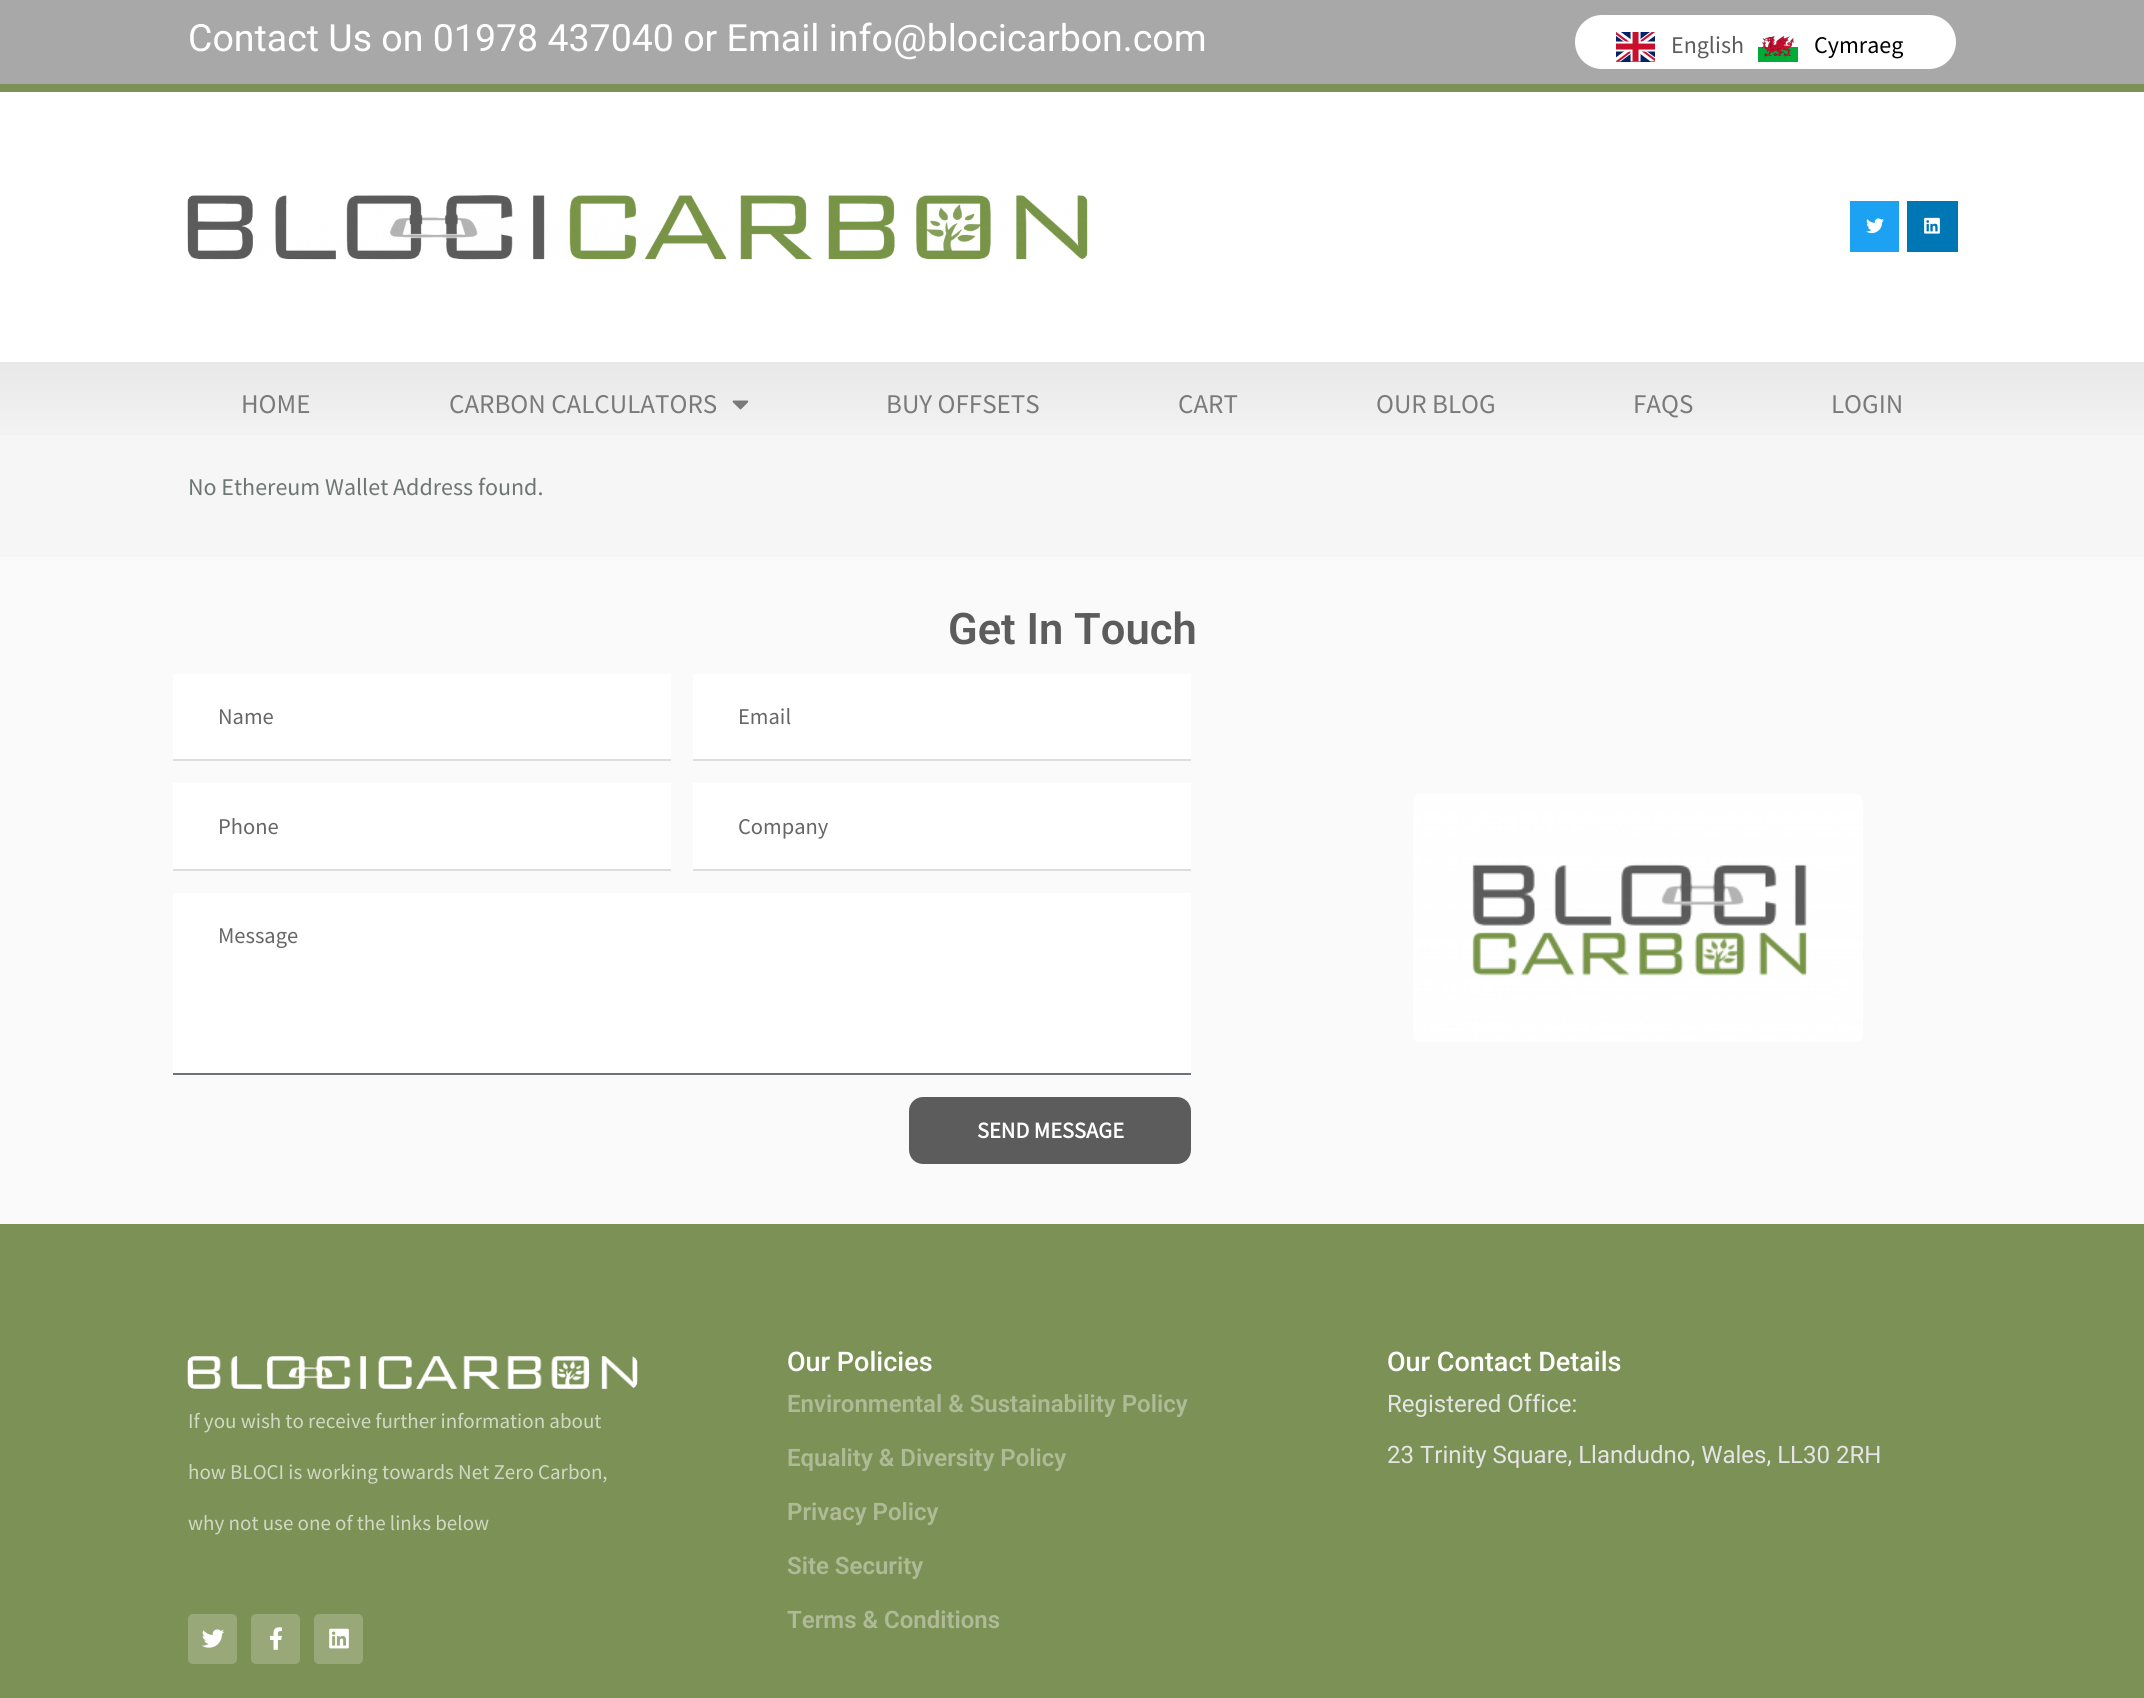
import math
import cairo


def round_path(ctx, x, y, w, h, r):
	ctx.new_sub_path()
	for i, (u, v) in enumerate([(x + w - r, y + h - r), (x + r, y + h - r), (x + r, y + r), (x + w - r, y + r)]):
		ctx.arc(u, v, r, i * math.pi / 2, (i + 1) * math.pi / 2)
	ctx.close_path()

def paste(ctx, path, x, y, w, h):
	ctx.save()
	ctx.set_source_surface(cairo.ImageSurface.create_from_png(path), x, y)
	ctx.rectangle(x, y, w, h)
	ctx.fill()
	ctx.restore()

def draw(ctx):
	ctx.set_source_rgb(0.961, 0.961, 0.961)
	ctx.paint()
	ctx.set_source_rgb(0.659, 0.659, 0.659)
	ctx.rectangle(0, 0, 2144, 84)
	ctx.fill()
	ctx.select_font_face('Roboto')
	ctx.set_font_size(37.5)
	ctx.set_source_rgb(1, 1, 1)
	ctx.move_to(188, 51)
	ctx.show_text('Contact Us on 01978 437040 or Email info@blocicarbon.com')
	round_path(ctx, 1575, 15, 381, 54, 27)
	ctx.fill()
	paste(ctx, 'media/1.png', 1616, 32, 39, 30)
	ctx.select_font_face('Source Sans Pro')
	ctx.set_font_size(24)
	ctx.set_source_rgb(0.361, 0.361, 0.361)
	ctx.move_to(1671, 53)
	ctx.show_text('English')
	paste(ctx, 'media/2.png', 1758, 35, 40, 27)
	ctx.set_source_rgb(0, 0, 0)
	ctx.move_to(1814, 53)
	ctx.show_text('Cymraeg')
	ctx.set_source_rgb(1, 1, 1)
	ctx.rectangle(0, 92, 2144, 270)
	ctx.fill()
	ctx.set_source_rgb(0.486, 0.569, 0.337)
	ctx.rectangle(0, 84, 2144, 8)
	ctx.fill()
	paste(ctx, 'media/3.png', 187, 195, 901, 65)
	ctx.set_source_rgb(0.114, 0.631, 0.949)
	ctx.rectangle(1850, 201, 49, 51)
	ctx.fill()
	paste(ctx, 'media/4.png', 1866, 218, 18, 16)
	ctx.set_source_rgb(0, 0.467, 0.71)
	ctx.rectangle(1907, 201, 51, 51)
	ctx.fill()
	paste(ctx, 'media/5.png', 1924, 217, 16, 17)
	gradient = cairo.LinearGradient(1073, 361, 1073, 446)
	gradient.add_color_stop_rgba(0, 0.91, 0.91, 0.91, 1)
	gradient.add_color_stop_rgba(1, 0.957, 0.957, 0.957, 1)
	ctx.set_source(gradient)
	ctx.rectangle(0, 362, 2144, 73)
	ctx.fill()
	ctx.set_font_size(27)
	ctx.set_source_rgb(0.478, 0.478, 0.478)
	ctx.move_to(241, 413)
	ctx.show_text('HOME')
	ctx.move_to(449, 413)
	ctx.show_text('CARBON CALCULATORS')
	paste(ctx, 'media/6.png', 732, 400, 17, 10)
	for x, y, s in [
		(886, 413, 'BUY OFFSETS'),
		(1178, 413, 'CART'),
		(1376, 413, 'OUR BLOG'),
		(1633, 413, 'FAQS'),
		(1831, 413, 'LOGIN'),
	]:
		ctx.move_to(x, y)
		ctx.show_text(s)
	ctx.set_font_size(24)
	ctx.set_source_rgb(0.431, 0.463, 0.451)
	ctx.move_to(188, 495)
	ctx.show_text('No Ethereum Wallet Address found.')
	ctx.set_source_rgb(0.98, 0.98, 0.98)
	ctx.rectangle(0, 557, 2144, 667)
	ctx.fill()
	ctx.select_font_face('Roboto SemiBold')
	ctx.set_font_size(43.5)
	ctx.set_source_rgb(0.361, 0.361, 0.361)
	ctx.move_to(948, 644)
	ctx.show_text('Get In Touch')
	ctx.set_source_rgb(1, 1, 1)
	ctx.rectangle(173, 674, 498, 85)
	ctx.fill()
	ctx.set_source_rgb(0.867, 0.867, 0.867)
	ctx.rectangle(173, 759, 498, 2)
	ctx.fill()
	ctx.select_font_face('Source Sans Pro')
	ctx.set_font_size(22.5)
	ctx.set_source_rgb(0.4, 0.4, 0.4)
	ctx.move_to(218, 724)
	ctx.show_text('Name')
	ctx.set_source_rgb(1, 1, 1)
	ctx.rectangle(693, 674, 498, 85)
	ctx.fill()
	ctx.set_source_rgb(0.867, 0.867, 0.867)
	ctx.rectangle(693, 759, 498, 2)
	ctx.fill()
	ctx.set_source_rgb(0.4, 0.4, 0.4)
	ctx.move_to(738, 724)
	ctx.show_text('Email')
	ctx.set_source_rgb(1, 1, 1)
	ctx.rectangle(173, 783, 498, 86)
	ctx.fill()
	ctx.set_source_rgb(0.867, 0.867, 0.867)
	ctx.rectangle(173, 869, 498, 2)
	ctx.fill()
	ctx.set_source_rgb(0.4, 0.4, 0.4)
	ctx.move_to(218, 834)
	ctx.show_text('Phone')
	ctx.set_source_rgb(1, 1, 1)
	ctx.rectangle(693, 783, 498, 86)
	ctx.fill()
	ctx.set_source_rgb(0.867, 0.867, 0.867)
	ctx.rectangle(693, 869, 498, 2)
	ctx.fill()
	ctx.set_source_rgb(0.4, 0.4, 0.4)
	ctx.move_to(738, 834)
	ctx.show_text('Company')
	ctx.set_source_rgb(1, 1, 1)
	ctx.rectangle(173, 893, 1018, 180)
	ctx.fill()
	ctx.set_source_rgb(0.412, 0.447, 0.49)
	ctx.rectangle(173, 1073, 1018, 2)
	ctx.fill()
	ctx.set_source_rgb(0.4, 0.4, 0.4)
	ctx.move_to(218, 943)
	ctx.show_text('Message')
	ctx.set_source_rgb(0.361, 0.361, 0.361)
	round_path(ctx, 909, 1097, 282, 67, 14)
	ctx.fill()
	ctx.select_font_face('Source Sans Pro', cairo.FONT_SLANT_NORMAL, cairo.FONT_WEIGHT_BOLD)
	ctx.set_source_rgb(1, 1, 1)
	ctx.move_to(977, 1138)
	ctx.show_text('SEND MESSAGE')
	paste(ctx, 'media/7.png', 1413, 794, 450, 248)
	ctx.set_source_rgb(0.486, 0.569, 0.337)
	ctx.rectangle(0, 1224, 2144, 474)
	ctx.fill()
	paste(ctx, 'media/8.png', 187, 1356, 451, 33)
	ctx.select_font_face('Source Sans Pro')
	ctx.set_font_size(21)
	ctx.set_source_rgb(0.82, 0.851, 0.769)
	for x, y, s in [
		(188, 1428, 'If you wish to receive further information about'),
		(188, 1479, 'how BLOCI is working towards Net Zero Carbon,'),
		(188, 1530, 'why not use one of the links below'),
	]:
		ctx.move_to(x, y)
		ctx.show_text(s)
	ctx.set_source_rgb(0.596, 0.659, 0.475)
	round_path(ctx, 188, 1614, 49, 50, 5)
	ctx.fill()
	paste(ctx, 'media/9.png', 202, 1629, 22, 19)
	round_path(ctx, 251, 1614, 49, 50, 5)
	ctx.fill()
	paste(ctx, 'media/10.png', 270, 1627, 12, 23)
	round_path(ctx, 314, 1614, 49, 50, 5)
	ctx.fill()
	paste(ctx, 'media/11.png', 329, 1628, 20, 21)
	ctx.select_font_face('Roboto Medium')
	ctx.set_font_size(27)
	ctx.set_source_rgb(1, 1, 1)
	ctx.move_to(787, 1371)
	ctx.show_text('Our Policies')
	ctx.select_font_face('Roboto SemiBold')
	ctx.set_font_size(24)
	ctx.set_source_rgb(0.682, 0.733, 0.588)
	for x, y, s in [
		(787, 1412, 'Environmental & Sustainability Policy'),
		(787, 1466, 'Equality & Diversity Policy'),
		(787, 1520, 'Privacy Policy'),
		(787, 1574, 'Site Security'),
		(787, 1628, 'Terms & Conditions'),
	]:
		ctx.move_to(x, y)
		ctx.show_text(s)
	ctx.select_font_face('Roboto Medium')
	ctx.set_font_size(27)
	ctx.set_source_rgb(1, 1, 1)
	ctx.move_to(1387, 1371)
	ctx.show_text('Our Contact Details')
	ctx.select_font_face('Roboto')
	ctx.set_font_size(24)
	ctx.set_source_rgb(0.898, 0.898, 0.898)
	ctx.move_to(1387, 1412)
	ctx.show_text('Registered Office:')
	ctx.move_to(1387, 1463)
	ctx.show_text('23 Trinity Square, Llandudno, Wales, LL30 2RH')


surface = cairo.ImageSurface(cairo.FORMAT_RGB24, 2144, 1698)
ctx = cairo.Context(surface)
options = cairo.FontOptions()
options.set_hint_metrics(cairo.HINT_METRICS_OFF)
options.set_hint_style(cairo.HINT_STYLE_NONE)
ctx.set_font_options(options)
ctx.set_miter_limit(4)
draw(ctx)
surface.write_to_png('image.png')
